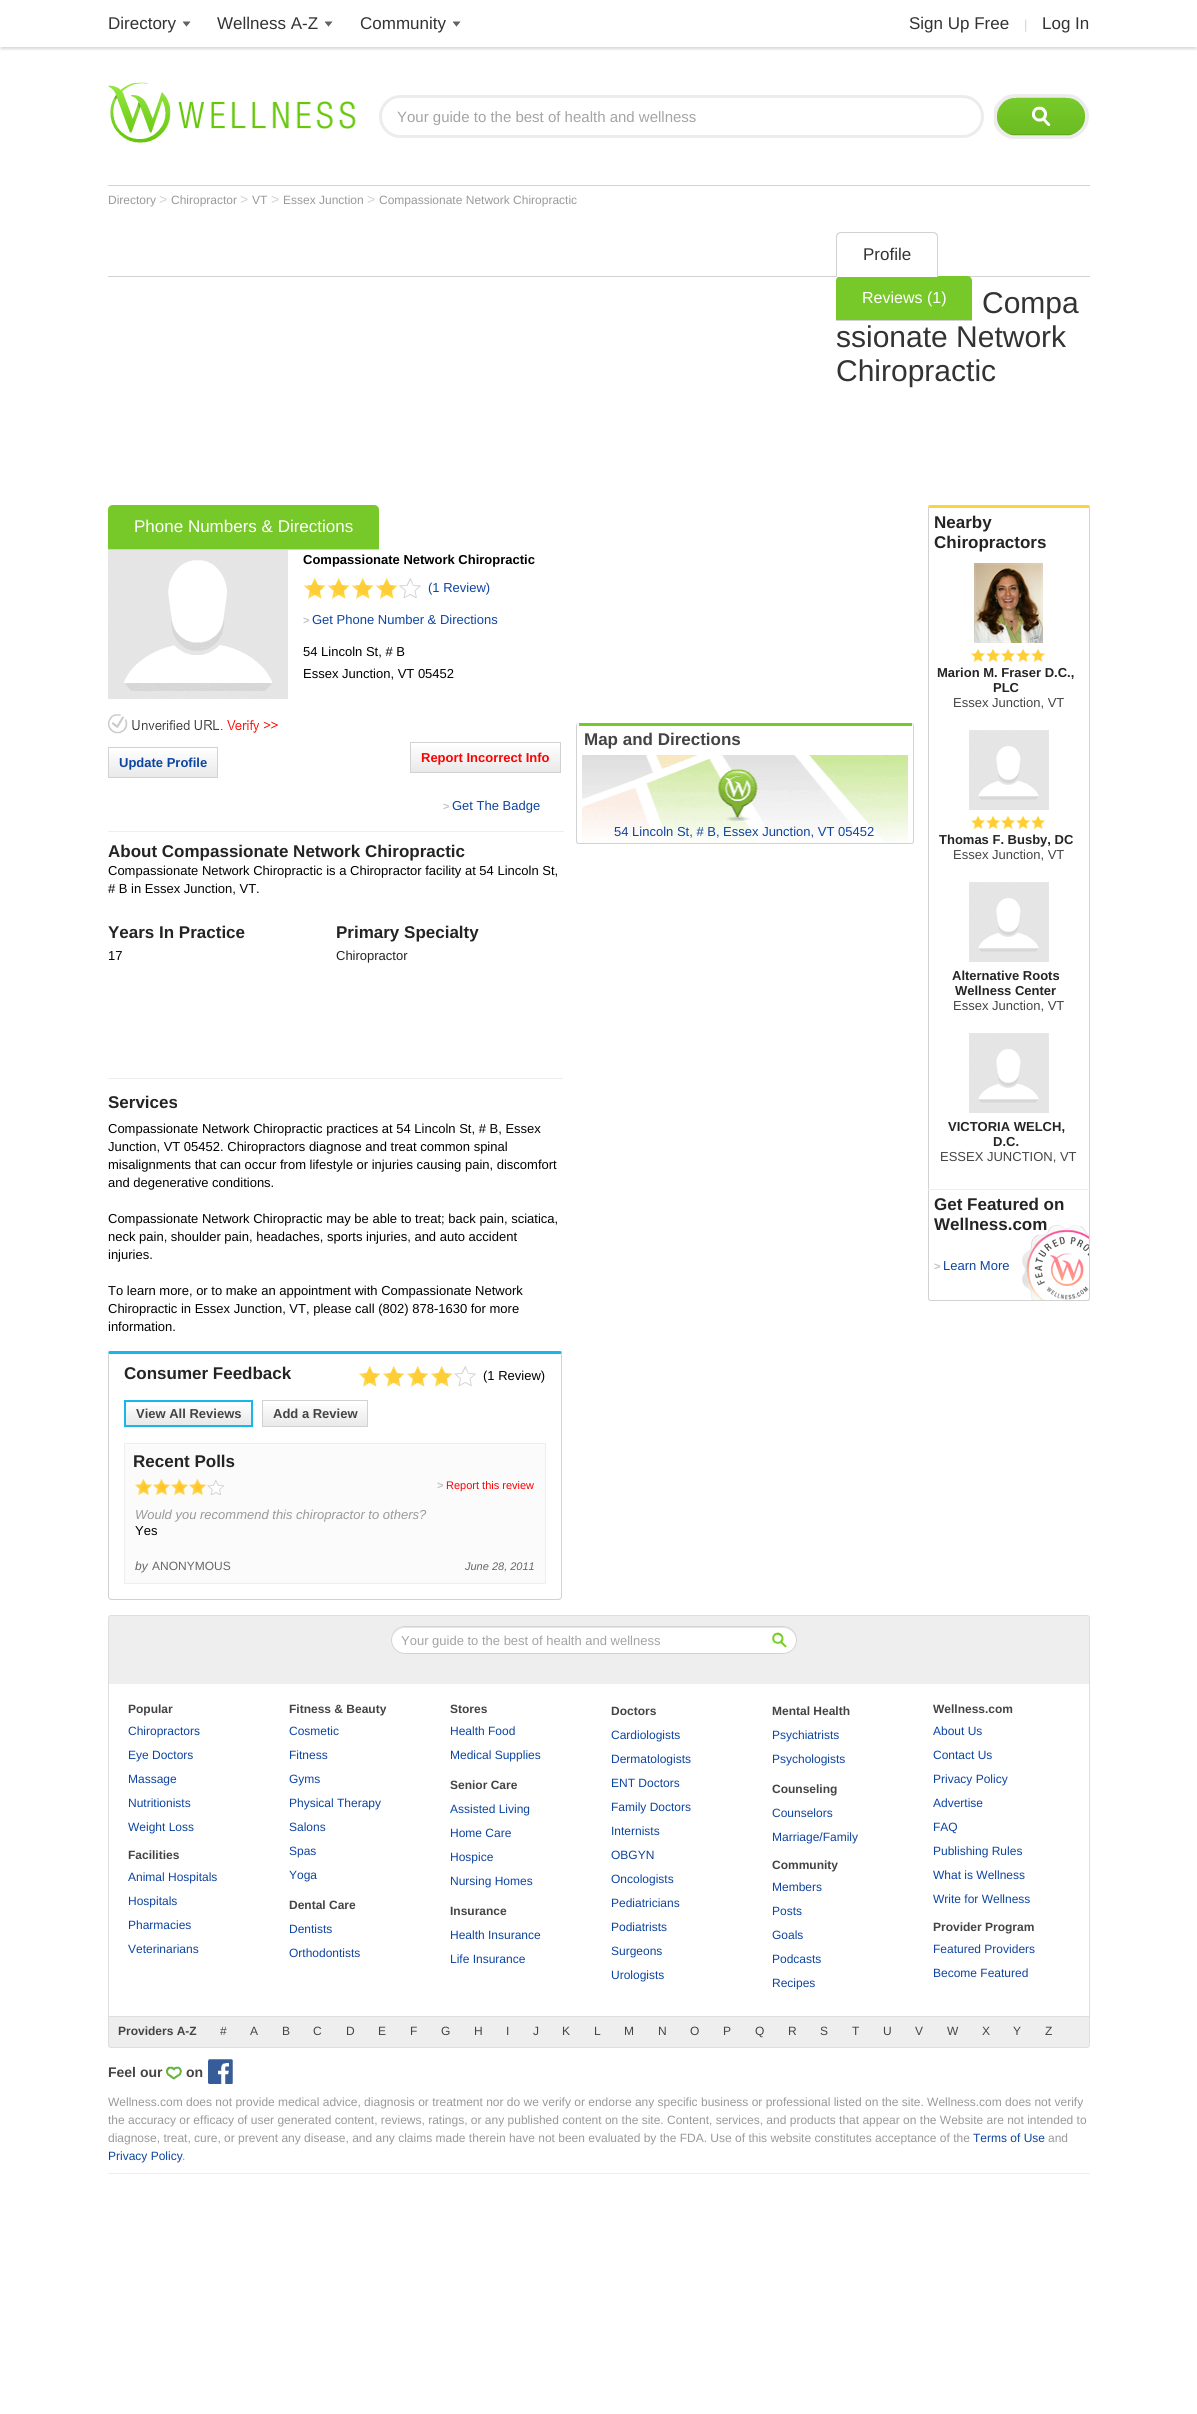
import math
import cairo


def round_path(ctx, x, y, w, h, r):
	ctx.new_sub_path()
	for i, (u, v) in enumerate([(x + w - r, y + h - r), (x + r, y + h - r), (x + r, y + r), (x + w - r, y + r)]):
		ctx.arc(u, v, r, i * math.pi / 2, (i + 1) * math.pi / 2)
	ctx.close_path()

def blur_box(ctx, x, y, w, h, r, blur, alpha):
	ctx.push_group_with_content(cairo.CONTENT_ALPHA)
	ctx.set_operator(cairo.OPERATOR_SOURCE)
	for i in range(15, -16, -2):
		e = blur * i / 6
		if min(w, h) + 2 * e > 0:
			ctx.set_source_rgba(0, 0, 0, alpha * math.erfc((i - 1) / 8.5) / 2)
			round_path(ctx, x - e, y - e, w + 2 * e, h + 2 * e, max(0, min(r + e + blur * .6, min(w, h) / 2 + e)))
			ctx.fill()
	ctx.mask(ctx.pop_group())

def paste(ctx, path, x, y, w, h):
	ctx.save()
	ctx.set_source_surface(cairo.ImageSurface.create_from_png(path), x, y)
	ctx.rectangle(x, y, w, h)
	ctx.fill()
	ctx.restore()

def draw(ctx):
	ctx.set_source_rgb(1, 1, 1)
	ctx.paint()
	ctx.save()
	ctx.rectangle(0, 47, 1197, 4)
	ctx.clip()
	ctx.set_source_rgb(0.196, 0.196, 0.196)
	blur_box(ctx, 1, 4, 1195, 45, 0, 1.5, 0.2)
	ctx.restore()
	paste(ctx, 'media/1.png', 183, 21, 8, 6)
	ctx.select_font_face('Liberation Sans')
	ctx.set_font_size(17)
	ctx.set_source_rgb(0.2, 0.2, 0.2)
	ctx.move_to(108, 29)
	ctx.show_text('Directory')
	paste(ctx, 'media/1.png', 325, 21, 8, 6)
	ctx.move_to(217, 29)
	ctx.show_text('Wellness A-Z')
	paste(ctx, 'media/1.png', 453, 21, 8, 6)
	ctx.move_to(360, 29)
	ctx.show_text('Community')
	ctx.move_to(909, 29)
	ctx.show_text('Sign Up Free')
	ctx.set_font_size(13)
	ctx.set_source_rgb(0.824, 0.824, 0.824)
	ctx.move_to(1024, 29)
	ctx.show_text('|')
	ctx.set_font_size(17)
	ctx.set_source_rgb(0.2, 0.2, 0.2)
	ctx.move_to(1042, 29)
	ctx.show_text('Log In')
	paste(ctx, 'media/2.png', 108, 82, 248, 61)
	round_path(ctx, 380.5, 96.5, 602, 40, 20)
	ctx.set_source_rgb(0.925, 0.925, 0.925)
	ctx.set_line_width(3)
	ctx.stroke()
	ctx.set_font_size(15)
	ctx.set_source_rgb(0.643, 0.643, 0.643)
	ctx.move_to(397, 122)
	ctx.show_text('Your guide to the best of health and wellness')
	paste(ctx, 'media/3.png', 994, 94, 95, 45)
	ctx.set_source_rgb(0.824, 0.824, 0.824)
	ctx.rectangle(108, 185, 982, 1)
	ctx.fill()
	ctx.set_font_size(12)
	ctx.set_source_rgb(0.6, 0.6, 0.6)
	ctx.move_to(108, 204)
	ctx.show_text('Directory')
	ctx.set_font_size(14)
	ctx.set_source_rgb(0.824, 0.824, 0.824)
	ctx.move_to(159, 204)
	ctx.show_text('>')
	ctx.set_font_size(12)
	ctx.set_source_rgb(0.6, 0.6, 0.6)
	ctx.move_to(171, 204)
	ctx.show_text('Chiropractor')
	ctx.set_font_size(14)
	ctx.set_source_rgb(0.824, 0.824, 0.824)
	ctx.move_to(240, 204)
	ctx.show_text('>')
	ctx.set_font_size(12)
	ctx.set_source_rgb(0.6, 0.6, 0.6)
	ctx.move_to(252, 204)
	ctx.show_text('VT')
	ctx.set_font_size(14)
	ctx.set_source_rgb(0.824, 0.824, 0.824)
	ctx.move_to(271, 204)
	ctx.show_text('>')
	ctx.set_font_size(12)
	ctx.set_source_rgb(0.6, 0.6, 0.6)
	ctx.move_to(283, 204)
	ctx.show_text('Essex Junction')
	ctx.set_font_size(14)
	ctx.set_source_rgb(0.824, 0.824, 0.824)
	ctx.move_to(367, 204)
	ctx.show_text('>')
	ctx.set_font_size(12)
	ctx.set_source_rgb(0.6, 0.6, 0.6)
	ctx.move_to(379, 204)
	ctx.show_text('Compassionate Network Chiropractic')
	ctx.set_source_rgb(0.824, 0.824, 0.824)
	ctx.rectangle(108, 276, 982, 1)
	ctx.fill()
	ctx.set_source_rgb(0.467, 0.788, 0.161)
	ctx.new_path()
	ctx.move_to(841, 276)
	ctx.line_to(967, 276)
	ctx.curve_to(970, 276, 972, 278, 972, 281)
	ctx.line_to(972, 320)
	ctx.line_to(836, 320)
	ctx.line_to(836, 281)
	ctx.curve_to(836, 278, 838, 276, 841, 276)
	ctx.close_path()
	ctx.fill()
	ctx.set_source_rgb(1, 1, 1)
	ctx.new_path()
	ctx.move_to(841, 232)
	ctx.line_to(933, 232)
	ctx.curve_to(936, 232, 938, 234, 938, 237)
	ctx.line_to(938, 277)
	ctx.line_to(836, 277)
	ctx.line_to(836, 237)
	ctx.curve_to(836, 234, 838, 232, 841, 232)
	ctx.close_path()
	ctx.fill()
	ctx.set_source_rgb(0.824, 0.824, 0.824)
	ctx.set_fill_rule(cairo.FILL_RULE_EVEN_ODD)
	ctx.new_path()
	ctx.move_to(841, 232)
	ctx.line_to(933, 232)
	ctx.curve_to(936, 232, 938, 234, 938, 237)
	ctx.line_to(938, 277)
	ctx.line_to(836, 277)
	ctx.line_to(836, 237)
	ctx.curve_to(836, 234, 838, 232, 841, 232)
	ctx.close_path()
	ctx.move_to(841, 233)
	ctx.line_to(933, 233)
	ctx.curve_to(935, 233, 937, 235, 937, 237)
	ctx.line_to(937, 277)
	ctx.line_to(837, 277)
	ctx.line_to(837, 237)
	ctx.curve_to(837, 235, 839, 233, 841, 233)
	ctx.close_path()
	ctx.fill()
	ctx.set_font_size(17)
	ctx.set_source_rgb(0.2, 0.2, 0.2)
	ctx.move_to(863, 260)
	ctx.show_text('Profile')
	ctx.set_source_rgb(0.824, 0.824, 0.824)
	ctx.rectangle(836, 320, 136, 1)
	ctx.fill()
	ctx.set_font_size(16)
	ctx.set_source_rgb(1, 1, 1)
	ctx.move_to(862, 303)
	ctx.show_text('Reviews (1)')
	ctx.set_source_rgb(0.467, 0.788, 0.161)
	ctx.new_path()
	ctx.move_to(113, 505)
	ctx.line_to(374, 505)
	ctx.curve_to(377, 505, 379, 507, 379, 510)
	ctx.line_to(379, 549)
	ctx.line_to(108, 549)
	ctx.line_to(108, 510)
	ctx.curve_to(108, 507, 110, 505, 113, 505)
	ctx.close_path()
	ctx.fill()
	ctx.set_source_rgb(0.824, 0.824, 0.824)
	ctx.rectangle(108, 549, 271, 1)
	ctx.fill()
	ctx.set_font_size(17)
	ctx.set_source_rgb(1, 1, 1)
	ctx.move_to(134, 532)
	ctx.show_text('Phone Numbers & Directions')
	ctx.set_font_size(30)
	ctx.set_source_rgb(0.2, 0.2, 0.2)
	for x, y, s in [
		(982, 313, 'Compa'),
		(836, 347, 'ssionate Network'),
		(836, 381, 'Chiropractic'),
	]:
		ctx.move_to(x, y)
		ctx.show_text(s)
	paste(ctx, 'media/4.png', 108, 550, 180, 149)
	ctx.select_font_face('Liberation Sans', cairo.FONT_SLANT_NORMAL, cairo.FONT_WEIGHT_BOLD)
	ctx.set_font_size(13)
	ctx.set_source_rgb(0, 0, 0)
	ctx.move_to(303, 564)
	ctx.show_text('Compassionate Network Chiropractic')
	paste(ctx, 'media/5.png', 304, 578, 11, 21)
	paste(ctx, 'media/6.png', 315, 576, 12, 25)
	paste(ctx, 'media/5.png', 328, 578, 11, 21)
	paste(ctx, 'media/6.png', 339, 576, 12, 25)
	paste(ctx, 'media/5.png', 352, 578, 11, 21)
	paste(ctx, 'media/6.png', 363, 576, 12, 25)
	paste(ctx, 'media/5.png', 376, 578, 11, 21)
	paste(ctx, 'media/6.png', 387, 576, 12, 25)
	paste(ctx, 'media/7.png', 399, 576, 12, 25)
	paste(ctx, 'media/8.png', 411, 576, 12, 25)
	ctx.select_font_face('Liberation Sans')
	ctx.set_source_rgb(0.051, 0.267, 0.627)
	ctx.move_to(428, 592)
	ctx.show_text('(1 Review)')
	ctx.select_font_face('Liberation Sans', cairo.FONT_SLANT_NORMAL, cairo.FONT_WEIGHT_BOLD)
	ctx.set_font_size(11)
	ctx.set_source_rgb(0.765, 0.765, 0.765)
	ctx.move_to(303, 624)
	ctx.show_text('>')
	ctx.select_font_face('Liberation Sans')
	ctx.set_font_size(13)
	ctx.set_source_rgb(0.051, 0.267, 0.627)
	ctx.move_to(312, 624)
	ctx.show_text('Get Phone Number & Directions')
	ctx.set_source_rgb(0, 0, 0)
	ctx.move_to(303, 656)
	ctx.show_text('54 Lincoln St, # B')
	ctx.move_to(303, 678)
	ctx.show_text('Essex Junction, VT 05452')
	paste(ctx, 'media/9.png', 108, 714, 170, 20)
	gradient = cairo.LinearGradient(163, 748, 163, 777)
	gradient.add_color_stop_rgba(0, 1, 1, 1, 1)
	gradient.add_color_stop_rgba(1, 0.914, 0.914, 0.914, 1)
	ctx.set_source(gradient)
	ctx.rectangle(109, 751, 108, 26)
	ctx.fill()
	ctx.rectangle(108.5, 747.5, 109, 30)
	ctx.set_source_rgb(0.824, 0.824, 0.824)
	ctx.set_line_width(1)
	ctx.stroke()
	ctx.select_font_face('Liberation Sans', cairo.FONT_SLANT_NORMAL, cairo.FONT_WEIGHT_BOLD)
	ctx.set_source_rgb(0.051, 0.267, 0.627)
	ctx.move_to(119, 767)
	ctx.show_text('Update Profile')
	gradient = cairo.LinearGradient(486, 743, 486, 772)
	gradient.add_color_stop_rgba(0, 1, 1, 1, 1)
	gradient.add_color_stop_rgba(1, 0.914, 0.914, 0.914, 1)
	ctx.set_source(gradient)
	ctx.rectangle(411, 746, 149, 26)
	ctx.fill()
	ctx.rectangle(410.5, 742.5, 150, 30)
	ctx.set_source_rgb(0.824, 0.824, 0.824)
	ctx.stroke()
	ctx.set_source_rgb(1, 0, 0)
	ctx.move_to(421, 762)
	ctx.show_text('Report Incorrect Info')
	ctx.set_font_size(11)
	ctx.set_source_rgb(0.765, 0.765, 0.765)
	ctx.move_to(443, 810)
	ctx.show_text('>')
	ctx.select_font_face('Liberation Sans')
	ctx.set_font_size(13)
	ctx.set_source_rgb(0.051, 0.267, 0.627)
	ctx.move_to(452, 810)
	ctx.show_text('Get The Badge')
	ctx.set_source_rgb(0.933, 0.933, 0.933)
	ctx.rectangle(108, 831, 456, 1)
	ctx.fill()
	ctx.select_font_face('Liberation Sans', cairo.FONT_SLANT_NORMAL, cairo.FONT_WEIGHT_BOLD)
	ctx.set_font_size(17)
	ctx.set_source_rgb(0.141, 0.141, 0.141)
	ctx.move_to(108, 857)
	ctx.show_text('About Compassionate Network Chiropractic')
	ctx.select_font_face('Liberation Sans')
	ctx.set_font_size(13)
	ctx.set_source_rgb(0, 0, 0)
	ctx.move_to(108, 875)
	ctx.show_text('Compassionate Network Chiropractic is a Chiropractor facility at 54 Lincoln St,')
	ctx.move_to(108, 893)
	ctx.show_text('# B in Essex Junction, VT.')
	ctx.select_font_face('Liberation Sans', cairo.FONT_SLANT_NORMAL, cairo.FONT_WEIGHT_BOLD)
	ctx.set_font_size(17)
	ctx.set_source_rgb(0.141, 0.141, 0.141)
	ctx.move_to(108, 938)
	ctx.show_text('Years In Practice')
	ctx.select_font_face('Liberation Sans')
	ctx.set_font_size(13)
	ctx.set_source_rgb(0, 0, 0)
	ctx.move_to(108, 960)
	ctx.show_text('17')
	ctx.select_font_face('Liberation Sans', cairo.FONT_SLANT_NORMAL, cairo.FONT_WEIGHT_BOLD)
	ctx.set_font_size(17)
	ctx.set_source_rgb(0.141, 0.141, 0.141)
	ctx.move_to(336, 938)
	ctx.show_text('Primary Specialty')
	ctx.select_font_face('Liberation Sans')
	ctx.set_font_size(13)
	ctx.move_to(336, 960)
	ctx.show_text('Chiropractor')
	ctx.set_source_rgb(0.824, 0.824, 0.824)
	ctx.new_path()
	ctx.move_to(579, 723)
	ctx.line_to(911, 723)
	ctx.curve_to(913, 723, 914, 724, 914, 726)
	ctx.line_to(914, 841)
	ctx.curve_to(914, 843, 913, 844, 911, 844)
	ctx.line_to(579, 844)
	ctx.curve_to(577, 844, 576, 843, 576, 841)
	ctx.line_to(576, 726)
	ctx.curve_to(576, 724, 577, 723, 579, 723)
	ctx.close_path()
	ctx.move_to(579, 723)
	ctx.line_to(911, 723)
	ctx.curve_to(912, 723, 913, 724, 913, 726)
	ctx.line_to(913, 841)
	ctx.curve_to(913, 842, 912, 843, 911, 843)
	ctx.line_to(579, 843)
	ctx.curve_to(578, 843, 577, 842, 577, 841)
	ctx.line_to(577, 726)
	ctx.curve_to(577, 724, 578, 723, 579, 723)
	ctx.close_path()
	ctx.fill()
	paste(ctx, 'media/10.png', 577, 723, 335, 120)
	ctx.set_source_rgb(0.467, 0.788, 0.161)
	ctx.rectangle(579, 723, 333, 3)
	ctx.fill()
	ctx.set_source_rgb(1, 1, 1)
	ctx.rectangle(643, 726, 250, 23)
	ctx.fill()
	ctx.select_font_face('Liberation Sans', cairo.FONT_SLANT_NORMAL, cairo.FONT_WEIGHT_BOLD)
	ctx.set_font_size(17)
	ctx.set_source_rgb(0.267, 0.267, 0.267)
	ctx.move_to(584, 745)
	ctx.show_text('Map and Directions')
	ctx.set_source_rgb(1, 1, 1)
	ctx.set_fill_rule(cairo.FILL_RULE_WINDING)
	ctx.new_path()
	ctx.move_to(908, 754)
	ctx.line_to(908, 843)
	ctx.line_to(910, 843)
	ctx.curve_to(912, 843, 913, 842, 913, 840)
	ctx.line_to(913, 754)
	ctx.close_path()
	ctx.fill()
	ctx.new_path()
	ctx.move_to(577, 754)
	ctx.line_to(577, 840)
	ctx.curve_to(577, 842, 578, 843, 580, 843)
	ctx.line_to(582, 843)
	ctx.line_to(582, 754)
	ctx.close_path()
	ctx.fill()
	ctx.select_font_face('Liberation Sans')
	ctx.set_font_size(13)
	ctx.set_source_rgb(0.051, 0.267, 0.627)
	ctx.move_to(614, 836)
	ctx.show_text('54 Lincoln St, # B, Essex Junction, VT 05452')
	ctx.set_source_rgb(0.984, 0.831, 0.224)
	ctx.new_path()
	ctx.move_to(931, 505)
	ctx.curve_to(930, 505, 929, 505, 928, 506)
	ctx.line_to(929, 508)
	ctx.line_to(1089, 508)
	ctx.line_to(1090, 506)
	ctx.curve_to(1089, 505, 1088, 505, 1087, 505)
	ctx.close_path()
	ctx.fill()
	ctx.set_source_rgb(0.824, 0.824, 0.824)
	ctx.new_path()
	ctx.move_to(1089, 1189)
	ctx.line_to(1090, 1189)
	ctx.line_to(1090, 508)
	ctx.line_to(1090, 506)
	ctx.line_to(1089, 508)
	ctx.close_path()
	ctx.fill()
	ctx.new_path()
	ctx.move_to(928, 1189)
	ctx.line_to(929, 1189)
	ctx.line_to(929, 508)
	ctx.line_to(928, 506)
	ctx.line_to(928, 508)
	ctx.close_path()
	ctx.fill()
	ctx.select_font_face('Liberation Sans', cairo.FONT_SLANT_NORMAL, cairo.FONT_WEIGHT_BOLD)
	ctx.set_font_size(17)
	ctx.set_source_rgb(0.141, 0.141, 0.141)
	ctx.move_to(934, 528)
	ctx.show_text('Nearby')
	ctx.move_to(934, 548)
	ctx.show_text('Chiropractors')
	paste(ctx, 'media/11.png', 974, 563, 69, 80)
	paste(ctx, 'media/12.png', 971, 649, 7, 13)
	paste(ctx, 'media/13.png', 978, 649, 8, 13)
	paste(ctx, 'media/12.png', 986, 649, 7, 13)
	paste(ctx, 'media/13.png', 993, 649, 8, 13)
	paste(ctx, 'media/12.png', 1001, 649, 7, 13)
	paste(ctx, 'media/13.png', 1008, 649, 8, 13)
	paste(ctx, 'media/12.png', 1016, 649, 7, 13)
	paste(ctx, 'media/13.png', 1023, 649, 8, 13)
	paste(ctx, 'media/12.png', 1031, 649, 7, 13)
	paste(ctx, 'media/13.png', 1038, 649, 8, 13)
	ctx.set_font_size(13)
	ctx.move_to(937, 677)
	ctx.show_text('Marion M. Fraser D.C.,')
	ctx.move_to(993, 692)
	ctx.show_text('PLC')
	ctx.select_font_face('Liberation Sans')
	ctx.set_source_rgb(0.267, 0.267, 0.267)
	ctx.move_to(953, 707)
	ctx.show_text('Essex Junction, VT')
	paste(ctx, 'media/14.png', 969, 730, 80, 80)
	paste(ctx, 'media/12.png', 971, 816, 7, 13)
	paste(ctx, 'media/13.png', 978, 816, 8, 13)
	paste(ctx, 'media/12.png', 986, 816, 7, 13)
	paste(ctx, 'media/13.png', 993, 816, 8, 13)
	paste(ctx, 'media/12.png', 1001, 816, 7, 13)
	paste(ctx, 'media/13.png', 1008, 816, 8, 13)
	paste(ctx, 'media/12.png', 1016, 816, 7, 13)
	paste(ctx, 'media/13.png', 1023, 816, 8, 13)
	paste(ctx, 'media/12.png', 1031, 816, 7, 13)
	paste(ctx, 'media/13.png', 1038, 816, 8, 13)
	ctx.select_font_face('Liberation Sans', cairo.FONT_SLANT_NORMAL, cairo.FONT_WEIGHT_BOLD)
	ctx.set_source_rgb(0.141, 0.141, 0.141)
	ctx.move_to(939, 844)
	ctx.show_text('Thomas F. Busby, DC')
	ctx.select_font_face('Liberation Sans')
	ctx.set_source_rgb(0.267, 0.267, 0.267)
	ctx.move_to(953, 859)
	ctx.show_text('Essex Junction, VT')
	paste(ctx, 'media/14.png', 969, 882, 80, 80)
	ctx.select_font_face('Liberation Sans', cairo.FONT_SLANT_NORMAL, cairo.FONT_WEIGHT_BOLD)
	ctx.set_source_rgb(0.141, 0.141, 0.141)
	ctx.move_to(952, 980)
	ctx.show_text('Alternative Roots')
	ctx.move_to(955, 995)
	ctx.show_text('Wellness Center')
	ctx.select_font_face('Liberation Sans')
	ctx.set_source_rgb(0.267, 0.267, 0.267)
	ctx.move_to(953, 1010)
	ctx.show_text('Essex Junction, VT')
	paste(ctx, 'media/14.png', 969, 1033, 80, 80)
	ctx.select_font_face('Liberation Sans', cairo.FONT_SLANT_NORMAL, cairo.FONT_WEIGHT_BOLD)
	ctx.set_source_rgb(0.141, 0.141, 0.141)
	ctx.move_to(948, 1131)
	ctx.show_text('VICTORIA WELCH,')
	ctx.move_to(993, 1146)
	ctx.show_text('D.C.')
	ctx.select_font_face('Liberation Sans')
	ctx.set_source_rgb(0.267, 0.267, 0.267)
	ctx.move_to(940, 1161)
	ctx.show_text('ESSEX JUNCTION, VT')
	ctx.set_source_rgb(0.933, 0.933, 0.933)
	ctx.rectangle(928, 1189, 162, 1)
	ctx.fill()
	paste(ctx, 'media/15.png', 1022, 1225, 67, 75)
	ctx.set_source_rgb(0.824, 0.824, 0.824)
	ctx.set_fill_rule(cairo.FILL_RULE_EVEN_ODD)
	ctx.new_path()
	ctx.move_to(928, 1190)
	ctx.line_to(1090, 1190)
	ctx.line_to(1090, 1298)
	ctx.curve_to(1090, 1300, 1089, 1301, 1087, 1301)
	ctx.line_to(931, 1301)
	ctx.curve_to(929, 1301, 928, 1300, 928, 1298)
	ctx.close_path()
	ctx.move_to(929, 1190)
	ctx.line_to(1089, 1190)
	ctx.line_to(1089, 1298)
	ctx.curve_to(1089, 1299, 1088, 1300, 1087, 1300)
	ctx.line_to(931, 1300)
	ctx.curve_to(930, 1300, 929, 1299, 929, 1298)
	ctx.close_path()
	ctx.fill()
	ctx.select_font_face('Liberation Sans', cairo.FONT_SLANT_NORMAL, cairo.FONT_WEIGHT_BOLD)
	ctx.set_font_size(17)
	ctx.set_source_rgb(0.141, 0.141, 0.141)
	ctx.move_to(934, 1210)
	ctx.show_text('Get Featured on')
	ctx.move_to(934, 1230)
	ctx.show_text('Wellness.com')
	ctx.set_font_size(11)
	ctx.set_source_rgb(0.765, 0.765, 0.765)
	ctx.move_to(934, 1270)
	ctx.show_text('>')
	ctx.select_font_face('Liberation Sans')
	ctx.set_font_size(13)
	ctx.set_source_rgb(0.051, 0.267, 0.627)
	ctx.move_to(943, 1270)
	ctx.show_text('Learn More')
	ctx.set_source_rgb(0.933, 0.933, 0.933)
	ctx.rectangle(108, 1078, 455, 1)
	ctx.fill()
	ctx.select_font_face('Liberation Sans', cairo.FONT_SLANT_NORMAL, cairo.FONT_WEIGHT_BOLD)
	ctx.set_font_size(17)
	ctx.set_source_rgb(0.141, 0.141, 0.141)
	ctx.move_to(108, 1108)
	ctx.show_text('Services')
	ctx.select_font_face('Liberation Sans')
	ctx.set_font_size(13)
	ctx.set_source_rgb(0, 0, 0)
	for x, y, s in [
		(108, 1133, 'Compassionate Network Chiropractic practices at 54 Lincoln St, # B, Essex'),
		(108, 1151, 'Junction, VT 05452. Chiropractors diagnose and treat common spinal'),
		(108, 1169, 'misalignments that can occur from lifestyle or injuries causing pain, discomfort'),
		(108, 1187, 'and degenerative conditions.'),
		(108, 1223, 'Compassionate Network Chiropractic may be able to treat; back pain, sciatica,'),
		(108, 1241, 'neck pain, shoulder pain, headaches, sports injuries, and auto accident'),
		(108, 1259, 'injuries.'),
		(108, 1295, 'To learn more, or to make an appointment with Compassionate Network'),
		(108, 1313, 'Chiropractic in Essex Junction, VT, please call (802) 878-1630 for more'),
		(108, 1331, 'information.'),
	]:
		ctx.move_to(x, y)
		ctx.show_text(s)
	ctx.set_source_rgb(0.09, 0.718, 0.925)
	ctx.set_fill_rule(cairo.FILL_RULE_WINDING)
	ctx.new_path()
	ctx.move_to(111, 1351)
	ctx.curve_to(110, 1351, 109, 1351, 108, 1352)
	ctx.line_to(109, 1354)
	ctx.line_to(561, 1354)
	ctx.line_to(562, 1352)
	ctx.curve_to(561, 1351, 560, 1351, 559, 1351)
	ctx.close_path()
	ctx.fill()
	ctx.set_source_rgb(0.824, 0.824, 0.824)
	ctx.new_path()
	ctx.move_to(562, 1597)
	ctx.line_to(562, 1354)
	ctx.line_to(562, 1352)
	ctx.line_to(561, 1354)
	ctx.line_to(561, 1597)
	ctx.line_to(560, 1598)
	ctx.line_to(561, 1599)
	ctx.close_path()
	ctx.fill()
	ctx.new_path()
	ctx.move_to(111, 1600)
	ctx.line_to(559, 1600)
	ctx.line_to(561, 1599)
	ctx.line_to(560, 1598)
	ctx.line_to(559, 1599)
	ctx.line_to(111, 1599)
	ctx.line_to(110, 1598)
	ctx.line_to(109, 1599)
	ctx.close_path()
	ctx.fill()
	ctx.new_path()
	ctx.move_to(108, 1354)
	ctx.line_to(108, 1597)
	ctx.line_to(109, 1599)
	ctx.line_to(110, 1598)
	ctx.line_to(109, 1597)
	ctx.line_to(109, 1354)
	ctx.line_to(108, 1352)
	ctx.close_path()
	ctx.fill()
	ctx.select_font_face('Liberation Sans', cairo.FONT_SLANT_NORMAL, cairo.FONT_WEIGHT_BOLD)
	ctx.set_font_size(17)
	ctx.set_source_rgb(0.141, 0.141, 0.141)
	ctx.move_to(124, 1379)
	ctx.show_text('Consumer Feedback')
	paste(ctx, 'media/5.png', 359, 1366, 11, 21)
	paste(ctx, 'media/6.png', 370, 1364, 12, 25)
	paste(ctx, 'media/5.png', 383, 1366, 11, 21)
	paste(ctx, 'media/6.png', 394, 1364, 12, 25)
	paste(ctx, 'media/5.png', 407, 1366, 11, 21)
	paste(ctx, 'media/6.png', 418, 1364, 12, 25)
	paste(ctx, 'media/5.png', 431, 1366, 11, 21)
	paste(ctx, 'media/6.png', 442, 1364, 12, 25)
	paste(ctx, 'media/7.png', 454, 1364, 12, 25)
	paste(ctx, 'media/8.png', 466, 1364, 12, 25)
	ctx.select_font_face('Liberation Sans')
	ctx.set_font_size(13)
	ctx.set_source_rgb(0, 0, 0)
	ctx.move_to(483, 1380)
	ctx.show_text('(1 Review)')
	gradient = cairo.LinearGradient(189, 1402, 189, 1425)
	gradient.add_color_stop_rgba(0, 1, 1, 1, 1)
	gradient.add_color_stop_rgba(1, 0.914, 0.914, 0.914, 1)
	ctx.set_source(gradient)
	ctx.rectangle(126, 1405, 125, 20)
	ctx.fill()
	ctx.rectangle(125, 1401, 127, 25)
	ctx.set_source_rgb(0.09, 0.718, 0.925)
	ctx.set_line_width(2)
	ctx.stroke()
	ctx.select_font_face('Liberation Sans', cairo.FONT_SLANT_NORMAL, cairo.FONT_WEIGHT_BOLD)
	ctx.set_source_rgb(0.267, 0.267, 0.267)
	ctx.move_to(136, 1418)
	ctx.show_text('View All Reviews')
	gradient = cairo.LinearGradient(315, 1401, 315, 1426)
	gradient.add_color_stop_rgba(0, 1, 1, 1, 1)
	gradient.add_color_stop_rgba(1, 0.914, 0.914, 0.914, 1)
	ctx.set_source(gradient)
	ctx.rectangle(263, 1404, 104, 22)
	ctx.fill()
	ctx.rectangle(262.5, 1400.5, 105, 26)
	ctx.set_source_rgb(0.824, 0.824, 0.824)
	ctx.set_line_width(1)
	ctx.stroke()
	ctx.set_source_rgb(0.267, 0.267, 0.267)
	ctx.move_to(273, 1418)
	ctx.show_text('Add a Review')
	ctx.set_source_rgb(0.984, 0.984, 0.984)
	ctx.rectangle(124.5, 1443.5, 421, 140)
	ctx.fill_preserve()
	ctx.set_source_rgb(0.933, 0.933, 0.933)
	ctx.stroke()
	ctx.set_font_size(17)
	ctx.set_source_rgb(0.141, 0.141, 0.141)
	ctx.move_to(133, 1467)
	ctx.show_text('Recent Polls')
	paste(ctx, 'media/16.png', 135, 1478, 9, 17)
	paste(ctx, 'media/17.png', 144, 1479, 9, 16)
	paste(ctx, 'media/16.png', 153, 1478, 9, 17)
	paste(ctx, 'media/17.png', 162, 1479, 9, 16)
	paste(ctx, 'media/16.png', 171, 1478, 9, 17)
	paste(ctx, 'media/17.png', 180, 1479, 9, 16)
	paste(ctx, 'media/16.png', 189, 1478, 9, 17)
	paste(ctx, 'media/17.png', 198, 1479, 9, 16)
	paste(ctx, 'media/18.png', 207, 1481, 8, 14)
	paste(ctx, 'media/19.png', 215, 1479, 10, 16)
	ctx.set_font_size(11)
	ctx.set_source_rgb(0.765, 0.765, 0.765)
	ctx.move_to(437, 1489)
	ctx.show_text('>')
	ctx.select_font_face('Liberation Sans')
	ctx.set_source_rgb(1, 0, 0)
	ctx.move_to(446, 1489)
	ctx.show_text('Report this review')
	ctx.select_font_face('Liberation Sans', cairo.FONT_SLANT_ITALIC)
	ctx.set_font_size(13)
	ctx.set_source_rgb(0.6, 0.6, 0.6)
	ctx.move_to(135, 1519)
	ctx.show_text('Would you recommend this chiropractor to others?')
	ctx.select_font_face('Liberation Sans')
	ctx.set_source_rgb(0, 0, 0)
	ctx.move_to(135, 1535)
	ctx.show_text('Yes')
	ctx.select_font_face('Liberation Sans', cairo.FONT_SLANT_ITALIC)
	ctx.set_font_size(12)
	ctx.set_source_rgb(0.4, 0.4, 0.4)
	ctx.move_to(135, 1570)
	ctx.show_text('by')
	ctx.select_font_face('Liberation Sans')
	ctx.move_to(152, 1570)
	ctx.show_text('ANONYMOUS')
	ctx.select_font_face('Liberation Sans', cairo.FONT_SLANT_ITALIC)
	ctx.set_font_size(11)
	ctx.move_to(465, 1570)
	ctx.show_text('June 28, 2011')
	ctx.set_source_rgb(0.933, 0.933, 0.933)
	round_path(ctx, 108.5, 1615.5, 981, 432, 2.5)
	ctx.fill_preserve()
	ctx.set_source_rgb(0.871, 0.871, 0.871)
	ctx.stroke()
	ctx.set_source_rgb(1, 1, 1)
	round_path(ctx, 391, 1626, 406, 28, 14)
	ctx.fill()
	ctx.set_source_rgb(0.902, 0.902, 0.902)
	ctx.new_path()
	ctx.move_to(405, 1628)
	ctx.line_to(783, 1628)
	ctx.curve_to(790, 1628, 796, 1634, 796, 1641)
	ctx.curve_to(796, 1636, 794, 1632, 790, 1629)
	ctx.curve_to(788, 1628, 786, 1627, 783, 1627)
	ctx.line_to(405, 1627)
	ctx.curve_to(398, 1627, 392, 1633, 392, 1641)
	ctx.curve_to(392, 1634, 398, 1628, 405, 1628)
	ctx.close_path()
	ctx.fill()
	round_path(ctx, 391.5, 1626.5, 405, 27, 13.5)
	ctx.set_source_rgb(0.824, 0.824, 0.824)
	ctx.stroke()
	ctx.select_font_face('Liberation Sans')
	ctx.set_font_size(13)
	ctx.set_source_rgb(0.643, 0.643, 0.643)
	ctx.move_to(401, 1645)
	ctx.show_text('Your guide to the best of health and wellness')
	paste(ctx, 'media/20.png', 772, 1632, 15, 16)
	ctx.set_source_rgb(1, 1, 1)
	ctx.rectangle(109, 1684, 980, 332)
	ctx.fill()
	ctx.select_font_face('Liberation Sans', cairo.FONT_SLANT_NORMAL, cairo.FONT_WEIGHT_BOLD)
	ctx.set_font_size(12)
	ctx.set_source_rgb(0.267, 0.267, 0.267)
	ctx.move_to(128, 1713)
	ctx.show_text('Popular')
	ctx.select_font_face('Liberation Sans')
	ctx.set_source_rgb(0.051, 0.267, 0.627)
	for x, y, s in [
		(128, 1735, 'Chiropractors'),
		(128, 1759, 'Eye Doctors'),
		(128, 1783, 'Massage'),
		(128, 1807, 'Nutritionists'),
		(128, 1831, 'Weight Loss'),
	]:
		ctx.move_to(x, y)
		ctx.show_text(s)
	ctx.select_font_face('Liberation Sans', cairo.FONT_SLANT_NORMAL, cairo.FONT_WEIGHT_BOLD)
	ctx.set_source_rgb(0.267, 0.267, 0.267)
	ctx.move_to(128, 1859)
	ctx.show_text('Facilities')
	ctx.select_font_face('Liberation Sans')
	ctx.set_source_rgb(0.051, 0.267, 0.627)
	for x, y, s in [
		(128, 1881, 'Animal Hospitals'),
		(128, 1905, 'Hospitals'),
		(128, 1929, 'Pharmacies'),
		(128, 1953, 'Veterinarians'),
	]:
		ctx.move_to(x, y)
		ctx.show_text(s)
	ctx.select_font_face('Liberation Sans', cairo.FONT_SLANT_NORMAL, cairo.FONT_WEIGHT_BOLD)
	ctx.set_source_rgb(0.267, 0.267, 0.267)
	ctx.move_to(289, 1713)
	ctx.show_text('Fitness & Beauty')
	ctx.select_font_face('Liberation Sans')
	ctx.set_source_rgb(0.051, 0.267, 0.627)
	for x, y, s in [
		(289, 1735, 'Cosmetic'),
		(289, 1759, 'Fitness'),
		(289, 1783, 'Gyms'),
		(289, 1807, 'Physical Therapy'),
		(289, 1831, 'Salons'),
		(289, 1855, 'Spas'),
		(289, 1879, 'Yoga'),
	]:
		ctx.move_to(x, y)
		ctx.show_text(s)
	ctx.select_font_face('Liberation Sans', cairo.FONT_SLANT_NORMAL, cairo.FONT_WEIGHT_BOLD)
	ctx.set_source_rgb(0.267, 0.267, 0.267)
	ctx.move_to(289, 1909)
	ctx.show_text('Dental Care')
	ctx.select_font_face('Liberation Sans')
	ctx.set_source_rgb(0.051, 0.267, 0.627)
	ctx.move_to(289, 1933)
	ctx.show_text('Dentists')
	ctx.move_to(289, 1957)
	ctx.show_text('Orthodontists')
	ctx.select_font_face('Liberation Sans', cairo.FONT_SLANT_NORMAL, cairo.FONT_WEIGHT_BOLD)
	ctx.set_source_rgb(0.267, 0.267, 0.267)
	ctx.move_to(450, 1713)
	ctx.show_text('Stores')
	ctx.select_font_face('Liberation Sans')
	ctx.set_source_rgb(0.051, 0.267, 0.627)
	ctx.move_to(450, 1735)
	ctx.show_text('Health Food')
	ctx.move_to(450, 1759)
	ctx.show_text('Medical Supplies')
	ctx.select_font_face('Liberation Sans', cairo.FONT_SLANT_NORMAL, cairo.FONT_WEIGHT_BOLD)
	ctx.set_source_rgb(0.267, 0.267, 0.267)
	ctx.move_to(450, 1789)
	ctx.show_text('Senior Care')
	ctx.select_font_face('Liberation Sans')
	ctx.set_source_rgb(0.051, 0.267, 0.627)
	for x, y, s in [
		(450, 1813, 'Assisted Living'),
		(450, 1837, 'Home Care'),
		(450, 1861, 'Hospice'),
		(450, 1885, 'Nursing Homes'),
	]:
		ctx.move_to(x, y)
		ctx.show_text(s)
	ctx.select_font_face('Liberation Sans', cairo.FONT_SLANT_NORMAL, cairo.FONT_WEIGHT_BOLD)
	ctx.set_source_rgb(0.267, 0.267, 0.267)
	ctx.move_to(450, 1915)
	ctx.show_text('Insurance')
	ctx.select_font_face('Liberation Sans')
	ctx.set_source_rgb(0.051, 0.267, 0.627)
	ctx.move_to(450, 1939)
	ctx.show_text('Health Insurance')
	ctx.move_to(450, 1963)
	ctx.show_text('Life Insurance')
	ctx.select_font_face('Liberation Sans', cairo.FONT_SLANT_NORMAL, cairo.FONT_WEIGHT_BOLD)
	ctx.set_source_rgb(0.267, 0.267, 0.267)
	ctx.move_to(611, 1715)
	ctx.show_text('Doctors')
	ctx.select_font_face('Liberation Sans')
	ctx.set_source_rgb(0.051, 0.267, 0.627)
	for x, y, s in [
		(611, 1739, 'Cardiologists'),
		(611, 1763, 'Dermatologists'),
		(611, 1787, 'ENT Doctors'),
		(611, 1811, 'Family Doctors'),
		(611, 1835, 'Internists'),
		(611, 1859, 'OBGYN'),
		(611, 1883, 'Oncologists'),
		(611, 1907, 'Pediatricians'),
		(611, 1931, 'Podiatrists'),
		(611, 1955, 'Surgeons'),
		(611, 1979, 'Urologists'),
	]:
		ctx.move_to(x, y)
		ctx.show_text(s)
	ctx.select_font_face('Liberation Sans', cairo.FONT_SLANT_NORMAL, cairo.FONT_WEIGHT_BOLD)
	ctx.set_source_rgb(0.267, 0.267, 0.267)
	ctx.move_to(772, 1715)
	ctx.show_text('Mental Health')
	ctx.select_font_face('Liberation Sans')
	ctx.set_source_rgb(0.051, 0.267, 0.627)
	ctx.move_to(772, 1739)
	ctx.show_text('Psychiatrists')
	ctx.move_to(772, 1763)
	ctx.show_text('Psychologists')
	ctx.select_font_face('Liberation Sans', cairo.FONT_SLANT_NORMAL, cairo.FONT_WEIGHT_BOLD)
	ctx.set_source_rgb(0.267, 0.267, 0.267)
	ctx.move_to(772, 1793)
	ctx.show_text('Counseling')
	ctx.select_font_face('Liberation Sans')
	ctx.set_source_rgb(0.051, 0.267, 0.627)
	ctx.move_to(772, 1817)
	ctx.show_text('Counselors')
	ctx.move_to(772, 1841)
	ctx.show_text('Marriage/Family')
	ctx.select_font_face('Liberation Sans', cairo.FONT_SLANT_NORMAL, cairo.FONT_WEIGHT_BOLD)
	ctx.set_source_rgb(0.267, 0.267, 0.267)
	ctx.move_to(772, 1869)
	ctx.show_text('Community')
	ctx.select_font_face('Liberation Sans')
	ctx.set_source_rgb(0.051, 0.267, 0.627)
	for x, y, s in [
		(772, 1891, 'Members'),
		(772, 1915, 'Posts'),
		(772, 1939, 'Goals'),
		(772, 1963, 'Podcasts'),
		(772, 1987, 'Recipes'),
	]:
		ctx.move_to(x, y)
		ctx.show_text(s)
	ctx.select_font_face('Liberation Sans', cairo.FONT_SLANT_NORMAL, cairo.FONT_WEIGHT_BOLD)
	ctx.set_source_rgb(0.267, 0.267, 0.267)
	ctx.move_to(933, 1713)
	ctx.show_text('Wellness.com')
	ctx.select_font_face('Liberation Sans')
	ctx.set_source_rgb(0.051, 0.267, 0.627)
	for x, y, s in [
		(933, 1735, 'About Us'),
		(933, 1759, 'Contact Us'),
		(933, 1783, 'Privacy Policy'),
		(933, 1807, 'Advertise'),
		(933, 1831, 'FAQ'),
		(933, 1855, 'Publishing Rules'),
		(933, 1879, 'What is Wellness'),
		(933, 1903, 'Write for Wellness'),
	]:
		ctx.move_to(x, y)
		ctx.show_text(s)
	ctx.select_font_face('Liberation Sans', cairo.FONT_SLANT_NORMAL, cairo.FONT_WEIGHT_BOLD)
	ctx.set_source_rgb(0.267, 0.267, 0.267)
	ctx.move_to(933, 1931)
	ctx.show_text('Provider Program')
	ctx.select_font_face('Liberation Sans')
	ctx.set_source_rgb(0.051, 0.267, 0.627)
	ctx.move_to(933, 1953)
	ctx.show_text('Featured Providers')
	ctx.move_to(933, 1977)
	ctx.show_text('Become Featured')
	ctx.set_source_rgb(0.871, 0.871, 0.871)
	ctx.rectangle(109, 2016, 980, 1)
	ctx.fill()
	ctx.select_font_face('Liberation Sans', cairo.FONT_SLANT_NORMAL, cairo.FONT_WEIGHT_BOLD)
	ctx.set_source_rgb(0.267, 0.267, 0.267)
	ctx.move_to(118, 2035)
	ctx.show_text('Providers A-Z')
	ctx.select_font_face('Liberation Sans')
	for x, y, s in [
		(220, 2035, '#'),
		(250, 2035, 'A'),
		(282, 2035, 'B'),
		(313, 2035, 'C'),
		(346, 2035, 'D'),
		(378, 2035, 'E'),
		(410, 2035, 'F'),
		(441, 2035, 'G'),
		(474, 2035, 'H'),
		(506, 2035, 'I'),
		(533, 2035, 'J'),
		(562, 2035, 'K'),
		(594, 2035, 'L'),
		(624, 2035, 'M'),
		(658, 2035, 'N'),
		(690, 2035, 'O'),
		(723, 2035, 'P'),
		(755, 2035, 'Q'),
		(788, 2035, 'R'),
		(820, 2035, 'S'),
		(852, 2035, 'T'),
		(883, 2035, 'U'),
		(915, 2035, 'V'),
		(947, 2035, 'W'),
		(982, 2035, 'X'),
		(1013, 2035, 'Y'),
		(1045, 2035, 'Z'),
	]:
		ctx.move_to(x, y)
		ctx.show_text(s)
	ctx.select_font_face('Liberation Sans', cairo.FONT_SLANT_NORMAL, cairo.FONT_WEIGHT_BOLD)
	ctx.set_font_size(14)
	ctx.move_to(108, 2077)
	ctx.show_text('Feel our')
	paste(ctx, 'media/21.png', 166, 2066, 16, 14)
	ctx.move_to(186, 2077)
	ctx.show_text('on')
	paste(ctx, 'media/22.png', 208, 2059, 25, 25)
	ctx.set_source_rgb(0.933, 0.933, 0.933)
	ctx.rectangle(108, 2173, 982, 1)
	ctx.fill()
	ctx.select_font_face('Liberation Sans')
	ctx.set_font_size(12)
	ctx.set_source_rgb(0.6, 0.6, 0.6)
	for x, y, s in [
		(108, 2106, 'Wellness.com does not provide medical advice, diagnosis or treatment nor do we verify or endorse any specific business or professional listed on the site. Wellness.com does not verify'),
		(108, 2124, 'the accuracy or efficacy of user generated content, reviews, ratings, or any published content on the site. Content, services, and products that appear on the Website are not intended to'),
		(108, 2142, 'diagnose, treat, cure, or prevent any disease, and any claims made therein have not been evaluated by the FDA. Use of this website constitutes acceptance of the'),
	]:
		ctx.move_to(x, y)
		ctx.show_text(s)
	ctx.set_source_rgb(0.051, 0.267, 0.627)
	ctx.move_to(973, 2142)
	ctx.show_text('Terms of Use')
	ctx.set_source_rgb(0.6, 0.6, 0.6)
	ctx.move_to(1048, 2142)
	ctx.show_text('and')
	ctx.set_source_rgb(0.051, 0.267, 0.627)
	ctx.move_to(108, 2160)
	ctx.show_text('Privacy Policy')
	ctx.set_source_rgb(0.6, 0.6, 0.6)
	ctx.move_to(182, 2160)
	ctx.show_text('.')


surface = cairo.ImageSurface(cairo.FORMAT_RGB24, 1197, 2414)
ctx = cairo.Context(surface)
options = cairo.FontOptions()
options.set_hint_metrics(cairo.HINT_METRICS_OFF)
options.set_hint_style(cairo.HINT_STYLE_NONE)
ctx.set_font_options(options)
ctx.set_miter_limit(4)
draw(ctx)
surface.write_to_png('image.png')
